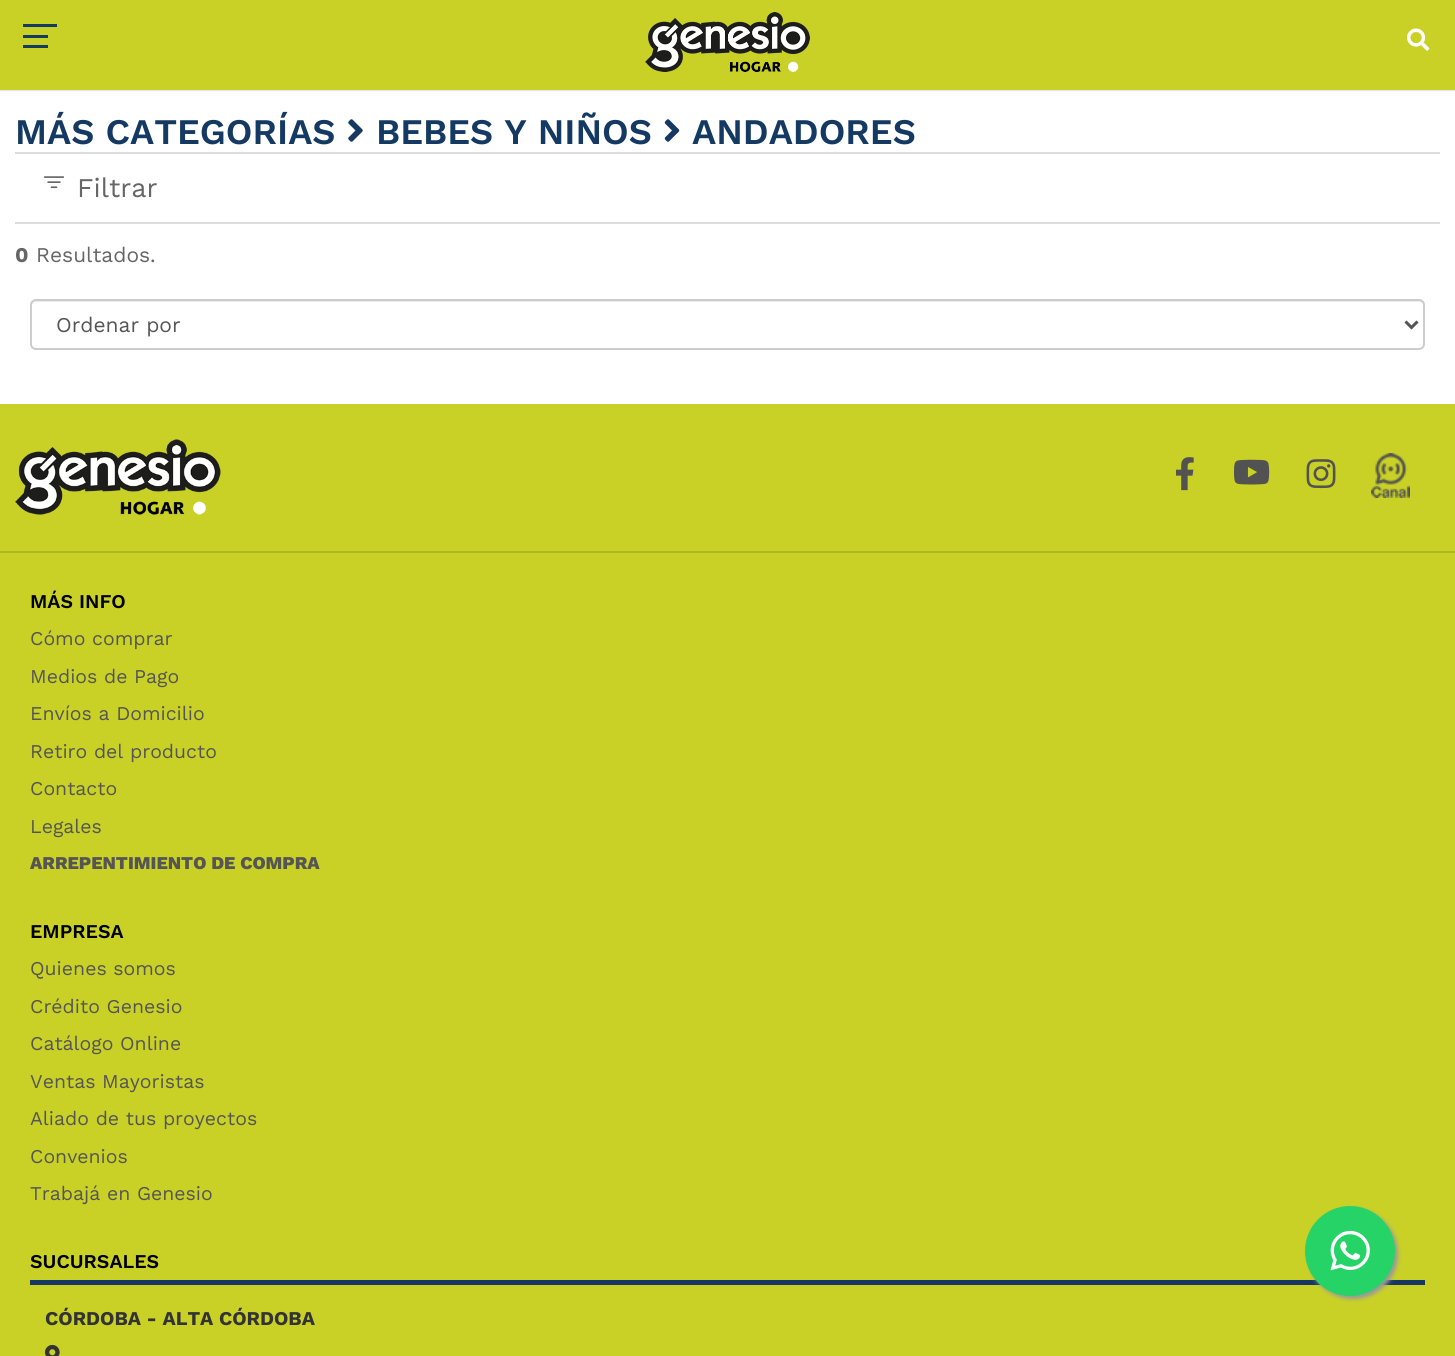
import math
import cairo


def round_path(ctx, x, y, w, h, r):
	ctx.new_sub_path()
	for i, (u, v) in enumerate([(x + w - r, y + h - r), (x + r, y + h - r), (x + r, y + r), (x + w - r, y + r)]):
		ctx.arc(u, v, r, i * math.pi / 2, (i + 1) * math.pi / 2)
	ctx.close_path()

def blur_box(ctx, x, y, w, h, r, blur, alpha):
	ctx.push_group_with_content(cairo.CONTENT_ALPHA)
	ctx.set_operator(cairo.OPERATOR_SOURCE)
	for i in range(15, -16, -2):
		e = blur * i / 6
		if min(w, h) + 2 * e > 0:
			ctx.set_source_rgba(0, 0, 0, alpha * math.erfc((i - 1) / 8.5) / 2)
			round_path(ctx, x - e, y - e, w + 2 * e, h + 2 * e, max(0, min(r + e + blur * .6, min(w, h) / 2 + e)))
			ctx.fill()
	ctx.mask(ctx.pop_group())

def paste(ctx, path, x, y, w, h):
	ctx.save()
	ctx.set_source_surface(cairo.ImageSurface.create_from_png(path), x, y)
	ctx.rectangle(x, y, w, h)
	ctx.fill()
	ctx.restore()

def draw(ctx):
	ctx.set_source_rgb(1, 1, 1)
	ctx.paint()
	ctx.set_source_rgb(0, 0, 0)
	blur_box(ctx, 0, 0, 1455, 90, 0, 1, 0.3)
	ctx.set_source_rgb(0.788, 0.82, 0.149)
	ctx.rectangle(0, 0, 1455, 90)
	ctx.fill()
	ctx.set_source_rgb(0.082, 0.224, 0.384)
	ctx.rectangle(23, 35, 25, 3)
	ctx.rectangle(23, 24, 34, 3)
	ctx.rectangle(23, 45, 25, 3)
	ctx.fill()
	paste(ctx, 'media/1.png', 645, 12, 165, 60)
	paste(ctx, 'media/2.png', 1407, 28, 23, 23)
	ctx.select_font_face('Work Sans SemiBold')
	ctx.set_font_size(36)
	ctx.move_to(15, 144)
	ctx.show_text('MÁS CATEGORÍAS')
	paste(ctx, 'media/3.png', 348, 119, 15, 23)
	ctx.move_to(376, 144)
	ctx.show_text('BEBES Y NIÑOS')
	paste(ctx, 'media/4.png', 664, 119, 16, 23)
	ctx.move_to(692, 144)
	ctx.show_text('ANDADORES')
	ctx.set_source_rgb(0.867, 0.867, 0.867)
	ctx.rectangle(15, 152, 1425, 2)
	ctx.fill()
	ctx.rectangle(15, 222, 1425, 2)
	ctx.fill()
	paste(ctx, 'media/5.png', 43, 176, 22, 13)
	ctx.select_font_face('Work Sans')
	ctx.set_font_size(27)
	ctx.set_source_rgb(0.4, 0.4, 0.4)
	ctx.move_to(77, 197)
	ctx.show_text('Filtrar')
	ctx.select_font_face('Work Sans', cairo.FONT_SLANT_NORMAL, cairo.FONT_WEIGHT_BOLD)
	ctx.set_font_size(21)
	ctx.move_to(15, 262)
	ctx.show_text('0')
	ctx.select_font_face('Work Sans')
	ctx.move_to(36, 262)
	ctx.show_text('Resultados.')
	ctx.set_source_rgb(0.925, 0.925, 0.925)
	ctx.new_path()
	ctx.move_to(36, 302)
	ctx.line_to(1419, 302)
	ctx.curve_to(1421, 302, 1424, 304, 1424, 306)
	ctx.curve_to(1424, 303, 1422, 300, 1419, 300)
	ctx.line_to(37, 300)
	ctx.curve_to(34, 300, 32, 303, 32, 306)
	ctx.curve_to(32, 304, 34, 302, 36, 302)
	ctx.close_path()
	ctx.fill()
	round_path(ctx, 31, 300, 1393, 49, 5)
	ctx.set_source_rgb(0.8, 0.8, 0.8)
	ctx.stroke()
	ctx.new_path()
	ctx.move_to(1405.5, 321.5)
	ctx.line_to(1411.5, 327.5)
	ctx.line_to(1417.5, 321.5)
	ctx.set_source_rgb(0.333, 0.333, 0.333)
	ctx.set_line_width(3)
	ctx.stroke()
	ctx.move_to(56, 332)
	ctx.show_text('Ordenar por')
	ctx.set_source_rgb(0.788, 0.82, 0.149)
	ctx.rectangle(0, 404, 1455, 952)
	ctx.fill()
	paste(ctx, 'media/6.png', 15, 439, 206, 76)
	paste(ctx, 'media/7.png', 1176, 457, 18, 34)
	paste(ctx, 'media/8.png', 1234, 459, 36, 26)
	paste(ctx, 'media/9.png', 1306, 459, 30, 30)
	paste(ctx, 'media/10.png', 1371, 453, 39, 45)
	ctx.set_source_rgb(0.682, 0.714, 0.129)
	ctx.rectangle(0, 551, 1455, 2)
	ctx.fill()
	ctx.select_font_face('Work Sans SemiBold')
	ctx.set_font_size(19.5)
	ctx.set_source_rgb(0, 0, 0)
	ctx.move_to(30, 608)
	ctx.show_text('MÁS INFO')
	ctx.select_font_face('Work Sans')
	ctx.set_source_rgb(0.333, 0.333, 0.333)
	for x, y, s in [
		(30, 645, 'Cómo comprar'),
		(30, 683, 'Medios de Pago'),
		(30, 720, 'Envíos a Domicilio'),
		(30, 758, 'Retiro del producto'),
		(30, 795, 'Contacto'),
		(30, 833, 'Legales'),
	]:
		ctx.move_to(x, y)
		ctx.show_text(s)
	ctx.select_font_face('Work Sans ExtraBold')
	ctx.set_font_size(18)
	ctx.move_to(30, 869)
	ctx.show_text('ARREPENTIMIENTO DE COMPRA')
	ctx.select_font_face('Work Sans SemiBold')
	ctx.set_font_size(19.5)
	ctx.set_source_rgb(0, 0, 0)
	ctx.move_to(30, 938)
	ctx.show_text('EMPRESA')
	ctx.select_font_face('Work Sans')
	ctx.set_source_rgb(0.333, 0.333, 0.333)
	for x, y, s in [
		(30, 975, 'Quienes somos'),
		(30, 1013, 'Crédito Genesio'),
		(30, 1050, 'Catálogo Online'),
		(30, 1088, 'Ventas Mayoristas'),
		(30, 1125, 'Aliado de tus proyectos'),
		(30, 1163, 'Convenios'),
		(30, 1200, 'Trabajá en Genesio'),
	]:
		ctx.move_to(x, y)
		ctx.show_text(s)
	ctx.set_source_rgb(0.086, 0.224, 0.388)
	ctx.rectangle(30, 1280, 1395, 5)
	ctx.fill()
	ctx.select_font_face('Work Sans SemiBold')
	ctx.set_source_rgb(0, 0, 0)
	ctx.move_to(30, 1268)
	ctx.show_text('SUCURSALES')
	ctx.select_font_face('Work Sans', cairo.FONT_SLANT_NORMAL, cairo.FONT_WEIGHT_BOLD)
	ctx.set_source_rgb(0.2, 0.2, 0.2)
	ctx.move_to(45, 1325)
	ctx.show_text('CÓRDOBA - ALTA CÓRDOBA')
	paste(ctx, 'media/11.png', 45, 1344, 15, 12)
	ctx.set_source_rgb(0.6, 0.6, 0.6)
	blur_box(ctx, 1308, 1209, 90, 90, 45, 2, 1)
	ctx.set_source_rgb(0.145, 0.827, 0.4)
	ctx.arc(1350, 1251, 45, 0, 2 * math.pi)
	ctx.fill()
	paste(ctx, 'media/12.png', 1330, 1230, 40, 41)


surface = cairo.ImageSurface(cairo.FORMAT_RGB24, 1455, 1356)
ctx = cairo.Context(surface)
options = cairo.FontOptions()
options.set_hint_metrics(cairo.HINT_METRICS_OFF)
options.set_hint_style(cairo.HINT_STYLE_NONE)
ctx.set_font_options(options)
ctx.set_miter_limit(4)
draw(ctx)
surface.write_to_png('image.png')
